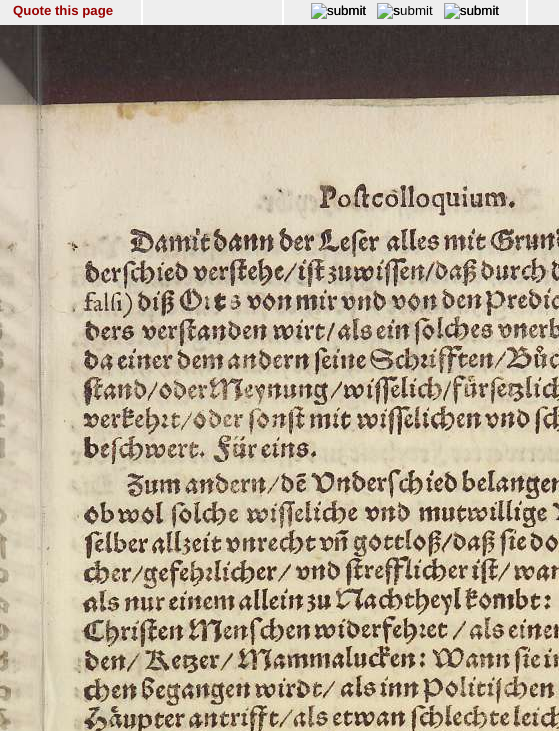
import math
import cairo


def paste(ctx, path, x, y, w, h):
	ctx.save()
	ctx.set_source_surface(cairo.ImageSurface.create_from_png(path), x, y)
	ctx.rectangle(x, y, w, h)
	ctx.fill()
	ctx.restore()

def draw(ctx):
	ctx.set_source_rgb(0.933, 0.933, 0.933)
	ctx.paint()
	ctx.set_source_rgb(1, 1, 1)
	ctx.rectangle(141, 0, 2, 25)
	ctx.fill()
	ctx.select_font_face('Liberation Sans', cairo.FONT_SLANT_NORMAL, cairo.FONT_WEIGHT_BOLD)
	ctx.set_font_size(13.25)
	ctx.set_source_rgb(0.6, 0, 0)
	ctx.move_to(13, 15)
	ctx.show_text('Quote this page')
	ctx.set_source_rgb(1, 1, 1)
	ctx.rectangle(282, 0, 2, 25)
	ctx.fill()
	ctx.rectangle(526, 0, 2, 25)
	ctx.fill()
	paste(ctx, 'media/1.png', 311, 3, 55, 16)
	ctx.select_font_face('Liberation Sans')
	ctx.set_source_rgb(0, 0, 0)
	ctx.move_to(327, 15)
	ctx.show_text('submit')
	paste(ctx, 'media/2.png', 377, 3, 56, 16)
	ctx.move_to(393, 15)
	ctx.show_text('s')
	paste(ctx, 'media/3.png', 444, 3, 55, 16)
	ctx.move_to(460, 15)
	ctx.show_text('submit')
	paste(ctx, 'media/4.png', 0, 25, 559, 706)


surface = cairo.ImageSurface(cairo.FORMAT_RGB24, 559, 731)
ctx = cairo.Context(surface)
options = cairo.FontOptions()
options.set_hint_metrics(cairo.HINT_METRICS_OFF)
options.set_hint_style(cairo.HINT_STYLE_NONE)
ctx.set_font_options(options)
ctx.set_miter_limit(4)
draw(ctx)
surface.write_to_png('image.png')
